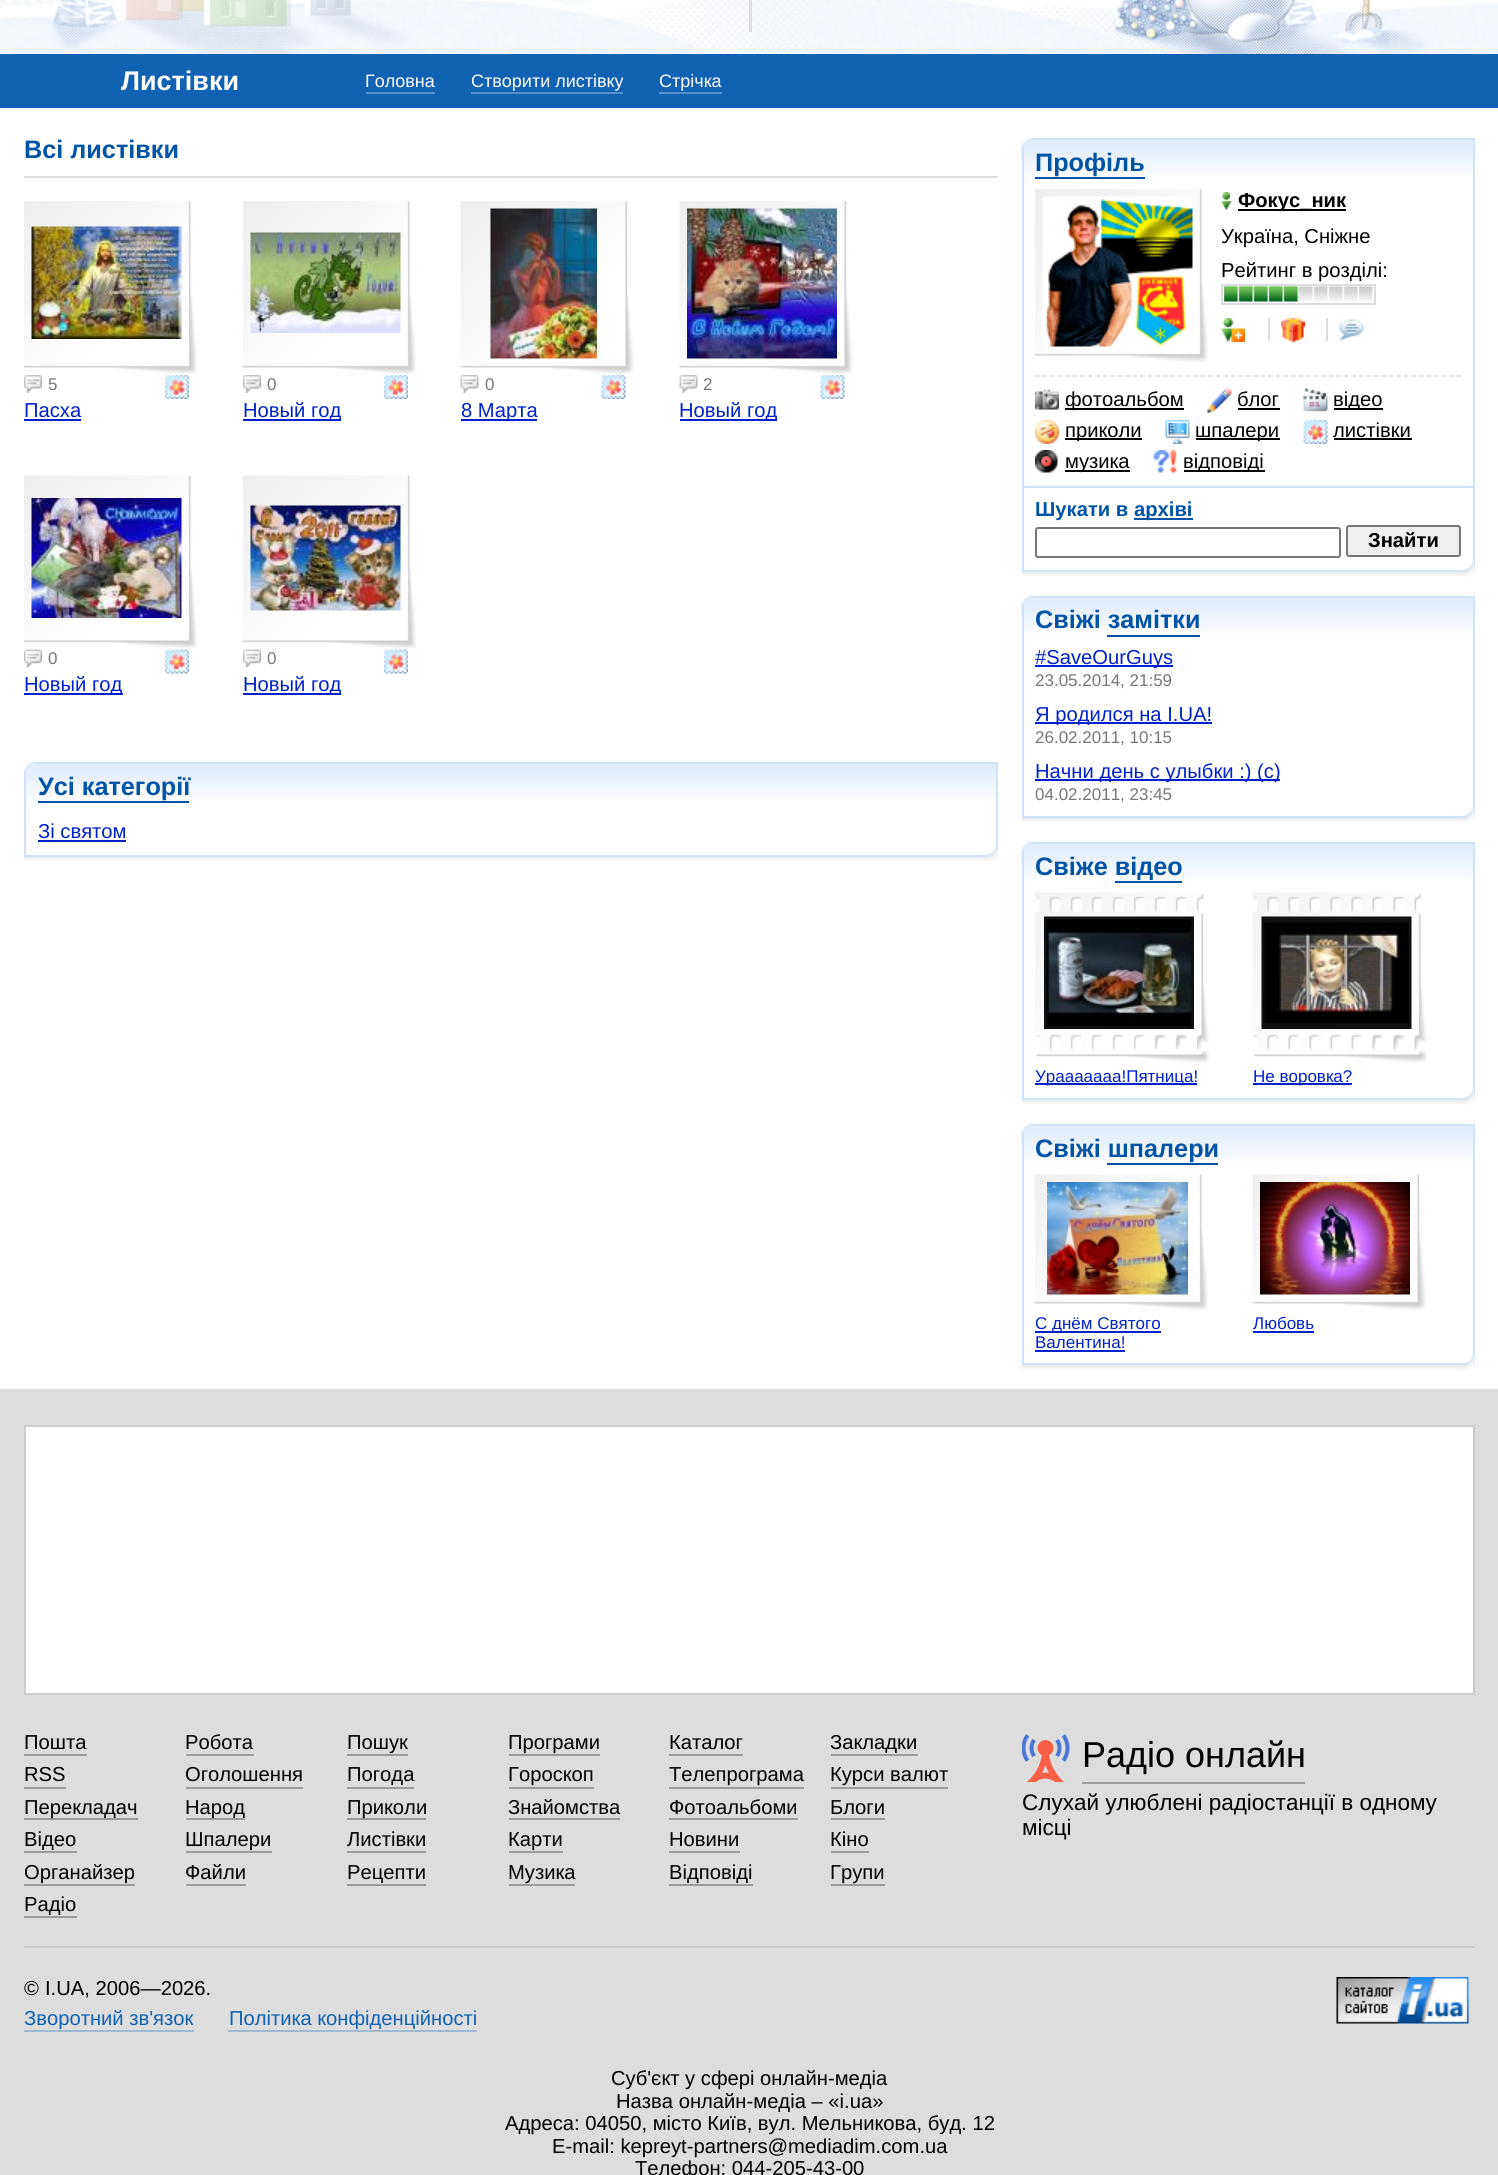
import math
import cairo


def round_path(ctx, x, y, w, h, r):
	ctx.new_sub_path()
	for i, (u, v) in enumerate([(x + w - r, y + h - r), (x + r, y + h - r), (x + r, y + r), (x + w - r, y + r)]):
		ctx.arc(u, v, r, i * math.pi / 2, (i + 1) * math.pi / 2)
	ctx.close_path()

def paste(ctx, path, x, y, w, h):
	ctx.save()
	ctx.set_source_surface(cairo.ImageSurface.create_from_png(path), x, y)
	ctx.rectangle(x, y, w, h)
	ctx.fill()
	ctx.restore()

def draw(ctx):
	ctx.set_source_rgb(1, 1, 1)
	ctx.paint()
	paste(ctx, 'media/1.png', 0, 0, 1498, 54)
	ctx.set_source_rgb(0.867, 0.867, 0.867)
	ctx.rectangle(749, 0, 3, 32)
	ctx.fill()
	ctx.set_source_rgb(0.067, 0.384, 0.702)
	ctx.rectangle(0, 54, 1498, 54)
	ctx.fill()
	ctx.select_font_face('Liberation Sans', cairo.FONT_SLANT_NORMAL, cairo.FONT_WEIGHT_BOLD)
	ctx.set_font_size(27)
	ctx.set_source_rgb(1, 1, 1)
	ctx.move_to(121, 90)
	ctx.show_text('Листівки')
	ctx.select_font_face('Liberation Sans')
	ctx.set_font_size(18)
	ctx.move_to(365, 87)
	ctx.show_text('Головна')
	ctx.set_source_rgb(0.345, 0.569, 0.792)
	ctx.rectangle(366, 92, 69, 2)
	ctx.fill()
	ctx.set_source_rgb(1, 1, 1)
	ctx.move_to(471, 87)
	ctx.show_text('Створити листівку')
	ctx.set_source_rgb(0.345, 0.569, 0.792)
	ctx.rectangle(471, 92, 152, 2)
	ctx.fill()
	ctx.set_source_rgb(1, 1, 1)
	ctx.move_to(659, 87)
	ctx.show_text('Стрічка')
	ctx.set_source_rgb(0.345, 0.569, 0.792)
	ctx.rectangle(659, 92, 63, 2)
	ctx.fill()
	ctx.select_font_face('Liberation Sans', cairo.FONT_SLANT_NORMAL, cairo.FONT_WEIGHT_BOLD)
	ctx.set_font_size(25.25)
	ctx.set_source_rgb(0, 0.325, 0.647)
	ctx.move_to(24, 158)
	ctx.show_text('Всі листівки')
	ctx.set_source_rgb(0.867, 0.867, 0.867)
	ctx.rectangle(24, 176, 974, 2)
	ctx.fill()
	paste(ctx, 'media/2.png', 24, 201, 173, 173)
	paste(ctx, 'media/3.png', 31, 226, 151, 113)
	paste(ctx, 'media/4.png', 24, 375, 18, 18)
	ctx.select_font_face('Liberation Sans')
	ctx.set_font_size(17)
	ctx.set_source_rgb(0.467, 0.467, 0.467)
	ctx.move_to(48, 390)
	ctx.show_text('5')
	paste(ctx, 'media/5.png', 165, 375, 24, 24)
	ctx.set_font_size(20.2)
	ctx.set_source_rgb(0, 0.133, 0.8)
	ctx.move_to(24, 417)
	ctx.show_text('Пасха')
	ctx.rectangle(24, 419, 57, 2)
	ctx.fill()
	paste(ctx, 'media/2.png', 243, 201, 173, 173)
	paste(ctx, 'media/6.png', 250, 232, 151, 101)
	paste(ctx, 'media/4.png', 243, 375, 18, 18)
	ctx.set_font_size(17)
	ctx.set_source_rgb(0.467, 0.467, 0.467)
	ctx.move_to(267, 390)
	ctx.show_text('0')
	paste(ctx, 'media/7.png', 384, 375, 24, 24)
	ctx.set_source_rgb(0, 0.133, 0.8)
	ctx.rectangle(243, 419, 98, 2)
	ctx.fill()
	ctx.set_font_size(20.2)
	ctx.move_to(243, 417)
	ctx.show_text('Новый год')
	paste(ctx, 'media/8.png', 460, 201, 174, 173)
	paste(ctx, 'media/9.png', 490, 208, 107, 151)
	paste(ctx, 'media/10.png', 460, 375, 19, 18)
	ctx.set_font_size(17)
	ctx.set_source_rgb(0.467, 0.467, 0.467)
	ctx.move_to(485, 390)
	ctx.show_text('0')
	paste(ctx, 'media/11.png', 601, 375, 25, 24)
	ctx.set_source_rgb(0, 0.133, 0.8)
	ctx.rectangle(461, 419, 76, 2)
	ctx.fill()
	ctx.set_font_size(20.2)
	ctx.move_to(461, 417)
	ctx.show_text('8 Марта')
	paste(ctx, 'media/12.png', 679, 201, 174, 173)
	paste(ctx, 'media/13.png', 687, 208, 150, 151)
	paste(ctx, 'media/14.png', 679, 375, 19, 18)
	ctx.set_font_size(17)
	ctx.set_source_rgb(0.467, 0.467, 0.467)
	ctx.move_to(703, 390)
	ctx.show_text('2')
	paste(ctx, 'media/15.png', 820, 375, 25, 24)
	ctx.set_source_rgb(0, 0.133, 0.8)
	ctx.rectangle(680, 419, 97, 2)
	ctx.fill()
	ctx.set_font_size(20.2)
	ctx.move_to(679, 417)
	ctx.show_text('Новый год')
	paste(ctx, 'media/16.png', 24, 475, 173, 174)
	paste(ctx, 'media/17.png', 31, 498, 151, 120)
	paste(ctx, 'media/18.png', 24, 649, 18, 19)
	ctx.set_font_size(17)
	ctx.set_source_rgb(0.467, 0.467, 0.467)
	ctx.move_to(48, 664)
	ctx.show_text('0')
	paste(ctx, 'media/19.png', 165, 649, 24, 25)
	ctx.set_source_rgb(0, 0.133, 0.8)
	ctx.rectangle(24, 693, 99, 2)
	ctx.fill()
	ctx.set_font_size(20.2)
	ctx.move_to(24, 691)
	ctx.show_text('Новый год')
	paste(ctx, 'media/16.png', 243, 475, 173, 174)
	paste(ctx, 'media/20.png', 250, 505, 151, 106)
	paste(ctx, 'media/18.png', 243, 649, 18, 19)
	ctx.set_font_size(17)
	ctx.set_source_rgb(0.467, 0.467, 0.467)
	ctx.move_to(267, 664)
	ctx.show_text('0')
	paste(ctx, 'media/21.png', 384, 649, 24, 25)
	ctx.set_source_rgb(0, 0.133, 0.8)
	ctx.rectangle(243, 693, 98, 2)
	ctx.fill()
	ctx.set_font_size(20.2)
	ctx.move_to(243, 691)
	ctx.show_text('Новый год')
	paste(ctx, 'media/22.png', 24, 857, 974, 4)
	paste(ctx, 'media/24.png', 26, 764, 970, 36)
	ctx.rectangle(25, 763, 972, 93)
	ctx.set_source_rgb(0.808, 0.89, 0.969)
	ctx.stroke()
	paste(ctx, 'media/23.png', 24, 762, 11, 11)
	ctx.select_font_face('Liberation Sans', cairo.FONT_SLANT_NORMAL, cairo.FONT_WEIGHT_BOLD)
	ctx.set_font_size(25.25)
	ctx.set_source_rgb(0, 0.325, 0.647)
	ctx.move_to(38, 795)
	ctx.show_text('Усі категорії')
	ctx.rectangle(38, 801, 151, 2)
	ctx.fill()
	ctx.select_font_face('Liberation Sans')
	ctx.set_font_size(20.2)
	ctx.set_source_rgb(0, 0.133, 0.8)
	ctx.move_to(38, 838)
	ctx.show_text('Зі святом')
	ctx.rectangle(38, 840, 88, 2)
	ctx.fill()
	paste(ctx, 'media/25.png', 985, 844, 13, 18)
	paste(ctx, 'media/26.png', 1021, 572, 454, 4)
	paste(ctx, 'media/28.png', 1021, 139, 452, 37)
	ctx.rectangle(1023, 139, 451, 432)
	ctx.set_source_rgb(0.808, 0.89, 0.969)
	ctx.stroke()
	paste(ctx, 'media/27.png', 1021, 138, 12, 12)
	ctx.select_font_face('Liberation Sans', cairo.FONT_SLANT_NORMAL, cairo.FONT_WEIGHT_BOLD)
	ctx.set_font_size(25.25)
	ctx.set_source_rgb(0, 0.325, 0.647)
	ctx.move_to(1035, 171)
	ctx.show_text('Профіль')
	ctx.rectangle(1035, 177, 110, 2)
	ctx.fill()
	paste(ctx, 'media/2.png', 1035, 189, 173, 173)
	paste(ctx, 'media/29.png', 1042, 196, 151, 151)
	paste(ctx, 'media/30.png', 1221, 192, 11, 18)
	ctx.set_source_rgb(0, 0, 0)
	ctx.rectangle(1238, 209, 108, 2)
	ctx.fill()
	ctx.set_font_size(20.2)
	ctx.move_to(1238, 207)
	ctx.show_text('Фокус_ник')
	ctx.select_font_face('Liberation Sans')
	ctx.move_to(1221, 243)
	ctx.show_text('Україна, Сніжне')
	ctx.move_to(1221, 277)
	ctx.show_text('Рейтинг в розділі:')
	paste(ctx, 'media/31.png', 1223, 286, 151, 16)
	ctx.rectangle(1222, 285, 153, 19)
	ctx.set_source_rgb(0.867, 0.867, 0.867)
	ctx.stroke()
	paste(ctx, 'media/32.png', 1224, 286, 75, 16)
	paste(ctx, 'media/33.png', 1221, 318, 24, 24)
	ctx.rectangle(1268, 318, 2, 23)
	ctx.fill()
	paste(ctx, 'media/34.png', 1281, 318, 24, 24)
	ctx.rectangle(1326, 318, 2, 23)
	ctx.fill()
	paste(ctx, 'media/35.png', 1339, 319, 25, 22)
	ctx.new_path()
	ctx.move_to(1035, 376)
	ctx.line_to(1461, 376)
	ctx.set_line_width(1.5)
	ctx.set_dash([4.5, 3.03])
	ctx.stroke()
	paste(ctx, 'media/36.png', 1035, 389, 24, 21)
	ctx.set_source_rgb(0, 0, 0)
	ctx.rectangle(1065, 408, 119, 2)
	ctx.fill()
	ctx.move_to(1065, 406)
	ctx.show_text('фотоальбом')
	paste(ctx, 'media/37.png', 1207, 388, 25, 25)
	ctx.move_to(1237, 406)
	ctx.show_text('блог')
	ctx.rectangle(1238, 408, 42, 2)
	ctx.fill()
	paste(ctx, 'media/38.png', 1303, 388, 25, 24)
	ctx.rectangle(1334, 408, 49, 2)
	ctx.fill()
	ctx.move_to(1333, 406)
	ctx.show_text('відео')
	paste(ctx, 'media/39.png', 1035, 420, 24, 24)
	ctx.rectangle(1065, 438, 77, 2)
	ctx.fill()
	ctx.move_to(1065, 437)
	ctx.show_text('приколи')
	paste(ctx, 'media/40.png', 1165, 420, 25, 24)
	ctx.rectangle(1196, 438, 84, 2)
	ctx.fill()
	ctx.move_to(1195, 437)
	ctx.show_text('шпалери')
	paste(ctx, 'media/11.png', 1303, 420, 25, 24)
	ctx.move_to(1333, 437)
	ctx.show_text('листівки')
	ctx.rectangle(1334, 438, 78, 2)
	ctx.fill()
	paste(ctx, 'media/41.png', 1035, 450, 23, 23)
	ctx.rectangle(1065, 470, 65, 2)
	ctx.fill()
	ctx.move_to(1065, 468)
	ctx.show_text('музика')
	paste(ctx, 'media/42.png', 1153, 450, 24, 23)
	ctx.rectangle(1184, 470, 81, 2)
	ctx.fill()
	ctx.move_to(1183, 468)
	ctx.show_text('відповіді')
	ctx.set_source_rgb(0.808, 0.89, 0.969)
	ctx.rectangle(1023, 486, 450, 2)
	ctx.fill()
	ctx.select_font_face('Liberation Sans', cairo.FONT_SLANT_NORMAL, cairo.FONT_WEIGHT_BOLD)
	ctx.set_source_rgb(0, 0.325, 0.647)
	ctx.move_to(1035, 516)
	ctx.show_text('Шукати в')
	ctx.rectangle(1134, 518, 59, 2)
	ctx.fill()
	ctx.move_to(1134, 516)
	ctx.show_text('архіві')
	round_path(ctx, 1036, 528, 304, 29, 2)
	ctx.set_source_rgb(0.463, 0.463, 0.463)
	ctx.set_line_width(2)
	ctx.set_dash([])
	ctx.stroke()
	ctx.set_source_rgb(0.937, 0.937, 0.937)
	round_path(ctx, 1347, 526, 113, 30, 2)
	ctx.fill_preserve()
	ctx.set_source_rgb(0.463, 0.463, 0.463)
	ctx.stroke()
	ctx.set_source_rgb(0, 0, 0)
	ctx.move_to(1368, 547)
	ctx.show_text('Знайти')
	paste(ctx, 'media/43.png', 1462, 559, 13, 18)
	paste(ctx, 'media/26.png', 1021, 818, 454, 4)
	paste(ctx, 'media/45.png', 1021, 597, 452, 36)
	ctx.rectangle(1023, 597, 451, 220)
	ctx.set_source_rgb(0.808, 0.89, 0.969)
	ctx.stroke()
	paste(ctx, 'media/44.png', 1021, 595, 13, 13)
	ctx.set_font_size(25.25)
	ctx.set_source_rgb(0, 0.325, 0.647)
	ctx.move_to(1035, 628)
	ctx.show_text('Свіжі замітки')
	ctx.rectangle(1107, 635, 93, 2)
	ctx.fill()
	ctx.set_source_rgb(0, 0.133, 0.8)
	ctx.rectangle(1035, 665, 138, 2)
	ctx.fill()
	ctx.select_font_face('Liberation Sans')
	ctx.set_font_size(20.2)
	ctx.move_to(1035, 664)
	ctx.show_text('#SaveOurGuys')
	ctx.set_font_size(17)
	ctx.set_source_rgb(0.467, 0.467, 0.467)
	ctx.move_to(1035, 686)
	ctx.show_text('23.05.2014, 21:59')
	ctx.set_source_rgb(0, 0.133, 0.8)
	ctx.rectangle(1035, 722, 177, 2)
	ctx.fill()
	ctx.set_font_size(20.2)
	ctx.move_to(1035, 721)
	ctx.show_text('Я родился на I.UA!')
	ctx.set_font_size(17)
	ctx.set_source_rgb(0.467, 0.467, 0.467)
	ctx.move_to(1035, 743)
	ctx.show_text('26.02.2011, 10:15')
	ctx.set_source_rgb(0, 0.133, 0.8)
	ctx.rectangle(1035, 779, 245, 2)
	ctx.fill()
	ctx.set_font_size(20.2)
	ctx.move_to(1035, 778)
	ctx.show_text('Начни день с улыбки :) (с)')
	ctx.set_font_size(17)
	ctx.set_source_rgb(0.467, 0.467, 0.467)
	ctx.move_to(1035, 800)
	ctx.show_text('04.02.2011, 23:45')
	paste(ctx, 'media/43.png', 1462, 805, 13, 18)
	paste(ctx, 'media/26.png', 1021, 1100, 454, 4)
	paste(ctx, 'media/45.png', 1021, 843, 452, 36)
	ctx.rectangle(1023, 843, 451, 256)
	ctx.set_source_rgb(0.808, 0.89, 0.969)
	ctx.stroke()
	paste(ctx, 'media/44.png', 1021, 841, 13, 13)
	ctx.select_font_face('Liberation Sans', cairo.FONT_SLANT_NORMAL, cairo.FONT_WEIGHT_BOLD)
	ctx.set_font_size(25.25)
	ctx.set_source_rgb(0, 0.325, 0.647)
	ctx.move_to(1035, 875)
	ctx.show_text('Свіже відео')
	ctx.rectangle(1115, 881, 67, 2)
	ctx.fill()
	paste(ctx, 'media/46.png', 1035, 892, 174, 171)
	paste(ctx, 'media/47.png', 1044, 916, 150, 113)
	ctx.set_source_rgb(0, 0.133, 0.8)
	ctx.rectangle(1035, 1083, 162, 2)
	ctx.fill()
	ctx.select_font_face('Liberation Sans')
	ctx.set_font_size(17)
	ctx.move_to(1035, 1082)
	ctx.show_text('Урааааааа!Пятница!')
	paste(ctx, 'media/48.png', 1252, 892, 175, 171)
	paste(ctx, 'media/49.png', 1261, 916, 151, 113)
	ctx.rectangle(1253, 1083, 99, 2)
	ctx.fill()
	ctx.move_to(1253, 1082)
	ctx.show_text('Не воровка?')
	paste(ctx, 'media/43.png', 1462, 1087, 13, 18)
	paste(ctx, 'media/50.png', 1021, 1365, 454, 5)
	paste(ctx, 'media/45.png', 1021, 1125, 452, 36)
	ctx.rectangle(1023, 1125, 451, 239)
	ctx.set_source_rgb(0.808, 0.89, 0.969)
	ctx.stroke()
	paste(ctx, 'media/44.png', 1021, 1123, 13, 13)
	ctx.select_font_face('Liberation Sans', cairo.FONT_SLANT_NORMAL, cairo.FONT_WEIGHT_BOLD)
	ctx.set_font_size(25.25)
	ctx.set_source_rgb(0, 0.325, 0.647)
	ctx.move_to(1035, 1157)
	ctx.show_text('Свіжі шпалери')
	ctx.rectangle(1107, 1163, 111, 2)
	ctx.fill()
	paste(ctx, 'media/51.png', 1035, 1174, 173, 136)
	paste(ctx, 'media/52.png', 1047, 1182, 141, 113)
	ctx.set_source_rgb(0, 0.133, 0.8)
	ctx.rectangle(1035, 1331, 126, 2)
	ctx.fill()
	ctx.select_font_face('Liberation Sans')
	ctx.set_font_size(17)
	ctx.move_to(1035, 1329)
	ctx.show_text('С днём Святого')
	ctx.move_to(1035, 1348)
	ctx.show_text('Валентина!')
	ctx.rectangle(1035, 1350, 90, 2)
	ctx.fill()
	paste(ctx, 'media/53.png', 1252, 1174, 174, 136)
	paste(ctx, 'media/54.png', 1260, 1182, 150, 113)
	ctx.move_to(1253, 1329)
	ctx.show_text('Любовь')
	ctx.rectangle(1253, 1331, 61, 2)
	ctx.fill()
	paste(ctx, 'media/55.png', 1463, 1353, 12, 17)
	ctx.set_source_rgb(0.867, 0.867, 0.867)
	ctx.rectangle(0, 1389, 1498, 786)
	ctx.fill()
	ctx.set_source_rgb(1, 1, 1)
	ctx.rectangle(25, 1426, 1449, 268)
	ctx.fill_preserve()
	ctx.set_source_rgb(0.8, 0.8, 0.8)
	ctx.stroke()
	ctx.set_font_size(20.2)
	ctx.set_source_rgb(0, 0, 0)
	ctx.move_to(24, 1749)
	ctx.show_text('Пошта')
	ctx.set_source_rgb(0.608, 0.608, 0.608)
	ctx.rectangle(24, 1754, 63, 2)
	ctx.fill()
	ctx.set_source_rgb(0, 0, 0)
	ctx.move_to(185, 1749)
	ctx.show_text('Робота')
	ctx.set_source_rgb(0.608, 0.608, 0.608)
	ctx.rectangle(186, 1754, 68, 2)
	ctx.fill()
	ctx.set_source_rgb(0, 0, 0)
	ctx.move_to(347, 1749)
	ctx.show_text('Пошук')
	ctx.set_source_rgb(0.608, 0.608, 0.608)
	ctx.rectangle(347, 1754, 61, 2)
	ctx.fill()
	ctx.set_source_rgb(0, 0, 0)
	ctx.move_to(508, 1749)
	ctx.show_text('Програми')
	ctx.set_source_rgb(0.608, 0.608, 0.608)
	ctx.rectangle(509, 1754, 91, 2)
	ctx.fill()
	ctx.set_source_rgb(0, 0, 0)
	ctx.move_to(669, 1749)
	ctx.show_text('Каталог')
	ctx.set_source_rgb(0.608, 0.608, 0.608)
	ctx.rectangle(669, 1754, 74, 2)
	ctx.fill()
	ctx.set_source_rgb(0, 0, 0)
	ctx.move_to(830, 1749)
	ctx.show_text('Закладки')
	ctx.set_source_rgb(0.608, 0.608, 0.608)
	ctx.rectangle(831, 1754, 87, 2)
	ctx.fill()
	ctx.set_source_rgb(0, 0, 0)
	ctx.move_to(24, 1781)
	ctx.show_text('RSS')
	ctx.set_source_rgb(0.608, 0.608, 0.608)
	ctx.rectangle(24, 1787, 42, 2)
	ctx.fill()
	ctx.set_source_rgb(0, 0, 0)
	ctx.move_to(185, 1781)
	ctx.show_text('Оголошення')
	ctx.set_source_rgb(0.608, 0.608, 0.608)
	ctx.rectangle(186, 1787, 117, 2)
	ctx.fill()
	ctx.set_source_rgb(0, 0, 0)
	ctx.move_to(347, 1781)
	ctx.show_text('Погода')
	ctx.set_source_rgb(0.608, 0.608, 0.608)
	ctx.rectangle(347, 1787, 67, 2)
	ctx.fill()
	ctx.set_source_rgb(0, 0, 0)
	ctx.move_to(508, 1781)
	ctx.show_text('Гороскоп')
	ctx.set_source_rgb(0.608, 0.608, 0.608)
	ctx.rectangle(509, 1787, 85, 2)
	ctx.fill()
	ctx.set_source_rgb(0, 0, 0)
	ctx.move_to(669, 1781)
	ctx.show_text('Телепрограма')
	ctx.set_source_rgb(0.608, 0.608, 0.608)
	ctx.rectangle(669, 1787, 135, 2)
	ctx.fill()
	ctx.set_source_rgb(0, 0, 0)
	ctx.move_to(830, 1781)
	ctx.show_text('Курси валют')
	ctx.set_source_rgb(0.608, 0.608, 0.608)
	ctx.rectangle(831, 1787, 117, 2)
	ctx.fill()
	ctx.rectangle(24, 1818, 114, 2)
	ctx.fill()
	ctx.set_source_rgb(0, 0, 0)
	ctx.move_to(24, 1814)
	ctx.show_text('Перекладач')
	ctx.set_source_rgb(0.608, 0.608, 0.608)
	ctx.rectangle(186, 1818, 59, 2)
	ctx.fill()
	ctx.set_source_rgb(0, 0, 0)
	ctx.move_to(185, 1814)
	ctx.show_text('Народ')
	ctx.set_source_rgb(0.608, 0.608, 0.608)
	ctx.rectangle(347, 1818, 79, 2)
	ctx.fill()
	ctx.set_source_rgb(0, 0, 0)
	ctx.move_to(347, 1814)
	ctx.show_text('Приколи')
	ctx.move_to(508, 1814)
	ctx.show_text('Знайомства')
	ctx.set_source_rgb(0.608, 0.608, 0.608)
	ctx.rectangle(509, 1818, 111, 2)
	ctx.fill()
	ctx.set_source_rgb(0, 0, 0)
	ctx.move_to(669, 1814)
	ctx.show_text('Фотоальбоми')
	ctx.set_source_rgb(0.608, 0.608, 0.608)
	ctx.rectangle(669, 1818, 129, 2)
	ctx.fill()
	ctx.set_source_rgb(0, 0, 0)
	ctx.move_to(830, 1814)
	ctx.show_text('Блоги')
	ctx.set_source_rgb(0.608, 0.608, 0.608)
	ctx.rectangle(831, 1818, 54, 2)
	ctx.fill()
	ctx.set_source_rgb(0, 0, 0)
	ctx.move_to(24, 1846)
	ctx.show_text('Відео')
	ctx.set_source_rgb(0.608, 0.608, 0.608)
	ctx.rectangle(24, 1851, 53, 2)
	ctx.fill()
	ctx.set_source_rgb(0, 0, 0)
	ctx.move_to(185, 1846)
	ctx.show_text('Шпалери')
	ctx.set_source_rgb(0.608, 0.608, 0.608)
	ctx.rectangle(186, 1851, 86, 2)
	ctx.fill()
	ctx.set_source_rgb(0, 0, 0)
	ctx.move_to(347, 1846)
	ctx.show_text('Листівки')
	ctx.set_source_rgb(0.608, 0.608, 0.608)
	ctx.rectangle(347, 1851, 79, 2)
	ctx.fill()
	ctx.set_source_rgb(0, 0, 0)
	ctx.move_to(508, 1846)
	ctx.show_text('Карти')
	ctx.set_source_rgb(0.608, 0.608, 0.608)
	ctx.rectangle(509, 1851, 54, 2)
	ctx.fill()
	ctx.set_source_rgb(0, 0, 0)
	ctx.move_to(669, 1846)
	ctx.show_text('Новини')
	ctx.set_source_rgb(0.608, 0.608, 0.608)
	ctx.rectangle(669, 1851, 71, 2)
	ctx.fill()
	ctx.set_source_rgb(0, 0, 0)
	ctx.move_to(830, 1846)
	ctx.show_text('Кіно')
	ctx.set_source_rgb(0.608, 0.608, 0.608)
	ctx.rectangle(831, 1851, 38, 2)
	ctx.fill()
	ctx.set_source_rgb(0, 0, 0)
	ctx.move_to(24, 1879)
	ctx.show_text('Органайзер')
	ctx.set_source_rgb(0.608, 0.608, 0.608)
	ctx.rectangle(24, 1884, 111, 2)
	ctx.fill()
	ctx.set_source_rgb(0, 0, 0)
	ctx.move_to(185, 1879)
	ctx.show_text('Файли')
	ctx.set_source_rgb(0.608, 0.608, 0.608)
	ctx.rectangle(186, 1884, 60, 2)
	ctx.fill()
	ctx.set_source_rgb(0, 0, 0)
	ctx.move_to(347, 1879)
	ctx.show_text('Рецепти')
	ctx.set_source_rgb(0.608, 0.608, 0.608)
	ctx.rectangle(347, 1884, 79, 2)
	ctx.fill()
	ctx.set_source_rgb(0, 0, 0)
	ctx.move_to(508, 1879)
	ctx.show_text('Музика')
	ctx.set_source_rgb(0.608, 0.608, 0.608)
	ctx.rectangle(509, 1884, 66, 2)
	ctx.fill()
	ctx.set_source_rgb(0, 0, 0)
	ctx.move_to(669, 1879)
	ctx.show_text('Відповіді')
	ctx.set_source_rgb(0.608, 0.608, 0.608)
	ctx.rectangle(669, 1884, 84, 2)
	ctx.fill()
	ctx.set_source_rgb(0, 0, 0)
	ctx.move_to(830, 1879)
	ctx.show_text('Групи')
	ctx.set_source_rgb(0.608, 0.608, 0.608)
	ctx.rectangle(831, 1884, 54, 2)
	ctx.fill()
	ctx.set_source_rgb(0, 0, 0)
	ctx.move_to(24, 1911)
	ctx.show_text('Радіо')
	ctx.set_source_rgb(0.608, 0.608, 0.608)
	ctx.rectangle(24, 1916, 53, 2)
	ctx.fill()
	ctx.rectangle(1082, 1782, 223, 2)
	ctx.fill()
	paste(ctx, 'media/56.png', 1022, 1734, 48, 48)
	ctx.set_font_size(36)
	ctx.set_source_rgb(0, 0, 0)
	ctx.move_to(1082, 1767)
	ctx.show_text('Радіо онлайн')
	ctx.set_font_size(22.5)
	ctx.move_to(1022, 1810)
	ctx.show_text('Слухай улюблені радіостанції в одному')
	ctx.move_to(1022, 1835)
	ctx.show_text('місці')
	ctx.set_source_rgb(0.8, 0.8, 0.8)
	ctx.rectangle(24, 1946, 1451, 2)
	ctx.fill()
	ctx.set_font_size(20.2)
	ctx.set_source_rgb(0, 0, 0)
	ctx.move_to(24, 1995)
	ctx.show_text('©')
	ctx.move_to(45, 1995)
	ctx.show_text('I.UA, 2006—2026.')
	ctx.set_source_rgb(0.627, 0.722, 0.816)
	ctx.rectangle(1468, 2000, 1, 2)
	ctx.fill()
	paste(ctx, 'media/57.png', 1336, 1977, 133, 47)
	ctx.set_source_rgb(0.067, 0.384, 0.702)
	ctx.move_to(24, 2025)
	ctx.show_text('Зворотний зв\'язок')
	ctx.set_source_rgb(0.627, 0.722, 0.816)
	ctx.rectangle(24, 2030, 170, 2)
	ctx.fill()
	ctx.set_source_rgb(0.067, 0.384, 0.702)
	ctx.move_to(229, 2025)
	ctx.show_text('Політика конфіденційності')
	ctx.set_source_rgb(0.627, 0.722, 0.816)
	ctx.rectangle(228, 2030, 249, 2)
	ctx.fill()
	ctx.set_source_rgb(0, 0, 0)
	for x, y, s in [
		(611, 2085, 'Суб\'єкт у сфері онлайн-медіа'),
		(616, 2108, 'Назва онлайн-медіа – «i.ua»'),
		(505, 2130, 'Адреса: 04050, місто Київ, вул. Мельникова, буд. 12'),
		(552, 2153, 'E-mail: kepreyt-partners@mediadim.com.ua'),
		(635, 2175, 'Телефон: 044-205-43-00'),
	]:
		ctx.move_to(x, y)
		ctx.show_text(s)


surface = cairo.ImageSurface(cairo.FORMAT_RGB24, 1498, 2175)
ctx = cairo.Context(surface)
options = cairo.FontOptions()
options.set_hint_metrics(cairo.HINT_METRICS_OFF)
options.set_hint_style(cairo.HINT_STYLE_NONE)
ctx.set_font_options(options)
ctx.set_miter_limit(4)
draw(ctx)
surface.write_to_png('image.png')
